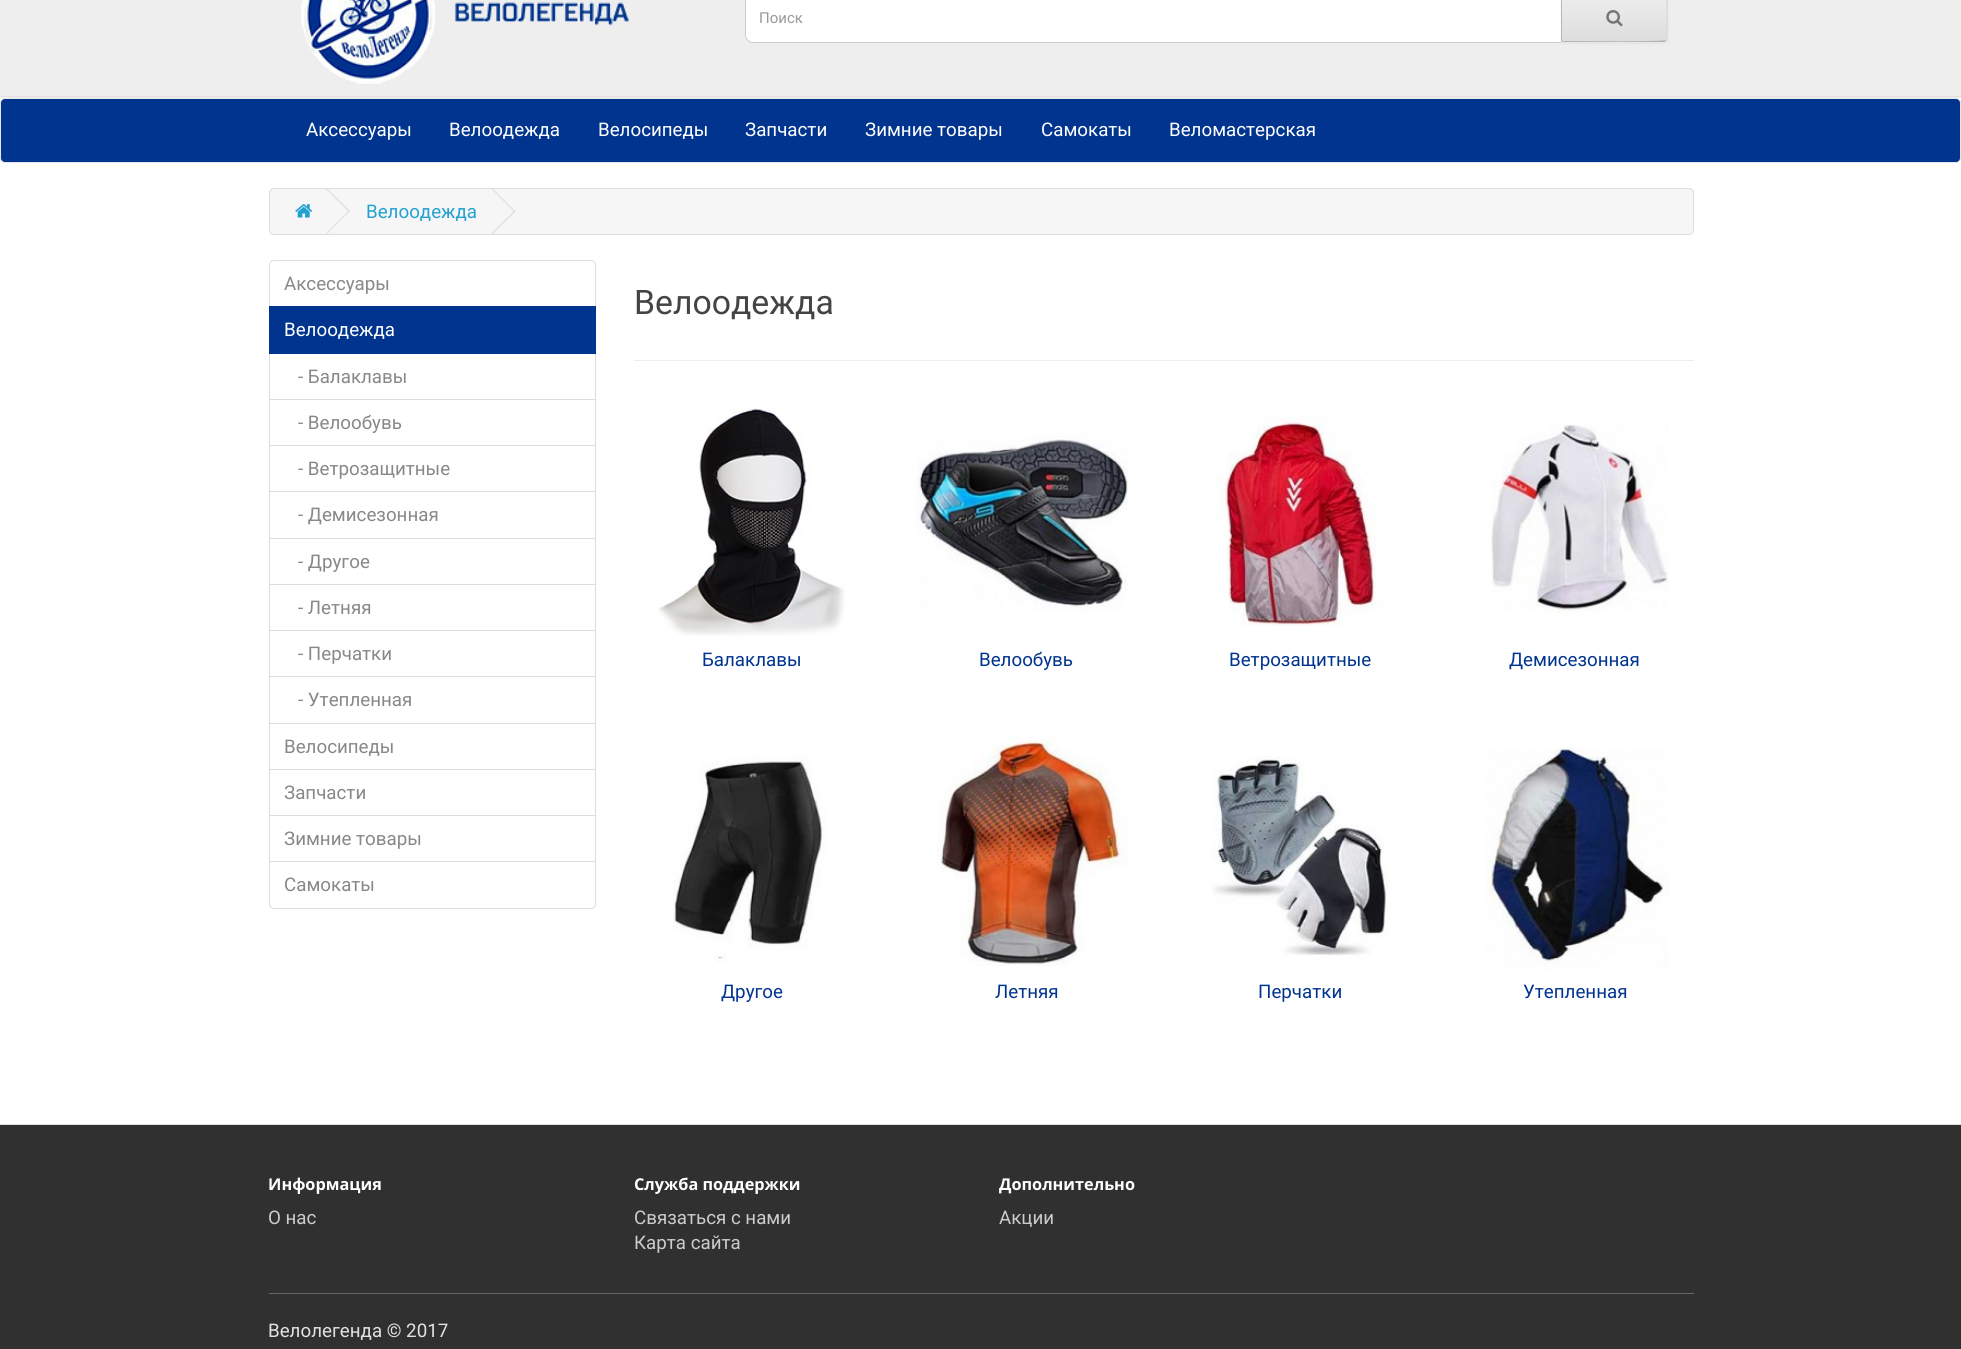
import math
import cairo


def round_path(ctx, x, y, w, h, r):
	ctx.new_sub_path()
	for i, (u, v) in enumerate([(x + w - r, y + h - r), (x + r, y + h - r), (x + r, y + r), (x + w - r, y + r)]):
		ctx.arc(u, v, r, i * math.pi / 2, (i + 1) * math.pi / 2)
	ctx.close_path()

def blur_box(ctx, x, y, w, h, r, blur, alpha):
	ctx.push_group_with_content(cairo.CONTENT_ALPHA)
	ctx.set_operator(cairo.OPERATOR_SOURCE)
	for i in range(15, -16, -2):
		e = blur * i / 6
		if min(w, h) + 2 * e > 0:
			ctx.set_source_rgba(0, 0, 0, alpha * math.erfc((i - 1) / 8.5) / 2)
			round_path(ctx, x - e, y - e, w + 2 * e, h + 2 * e, max(0, min(r + e + blur * .6, min(w, h) / 2 + e)))
			ctx.fill()
	ctx.mask(ctx.pop_group())

def paste(ctx, path, x, y, w, h):
	ctx.save()
	ctx.set_source_surface(cairo.ImageSurface.create_from_png(path), x, y)
	ctx.rectangle(x, y, w, h)
	ctx.fill()
	ctx.restore()

def draw(ctx):
	ctx.set_source_rgb(1, 1, 1)
	ctx.paint()
	ctx.set_source_rgb(0.933, 0.933, 0.933)
	ctx.rectangle(0, 0, 1961, 98)
	ctx.fill()
	ctx.set_source_rgb(0.886, 0.886, 0.886)
	ctx.rectangle(0, 96, 1961, 1)
	ctx.fill()
	paste(ctx, 'media/1.png', 301, 0, 328, 84)
	ctx.set_source_rgb(1, 1, 1)
	ctx.new_path()
	ctx.move_to(753, -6.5)
	ctx.line_to(1562.5, -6.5)
	ctx.line_to(1562.5, 42.5)
	ctx.line_to(753, 42.5)
	ctx.curve_to(749, 42.5, 745.5, 39, 745.5, 35)
	ctx.line_to(745.5, 1)
	ctx.curve_to(745.5, -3, 749, -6.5, 753, -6.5)
	ctx.close_path()
	ctx.fill_preserve()
	ctx.set_source_rgb(0.8, 0.8, 0.8)
	ctx.set_line_width(1)
	ctx.stroke()
	ctx.select_font_face('Roboto')
	ctx.set_font_size(15)
	ctx.set_source_rgb(0.6, 0.6, 0.6)
	ctx.move_to(759, 23)
	ctx.show_text('Поиск')
	ctx.set_source_rgb(0, 0, 0)
	blur_box(ctx, 1561, -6, 107, 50, 5, 1, 0.05)
	ctx.set_source_rgb(0.906, 0.906, 0.906)
	ctx.new_path()
	ctx.move_to(1561, -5)
	ctx.line_to(1663, -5)
	ctx.curve_to(1666, -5, 1668, -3, 1668, 0)
	ctx.line_to(1668, 38)
	ctx.curve_to(1668, 41, 1666, 43, 1663, 43)
	ctx.line_to(1561, 43)
	ctx.close_path()
	ctx.fill()
	gradient = cairo.LinearGradient(1614, -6.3, 1614, 41)
	gradient.add_color_stop_rgba(0, 0.933, 0.933, 0.933, 1)
	gradient.add_color_stop_rgba(1, 0.867, 0.867, 0.867, 1)
	ctx.set_source(gradient)
	ctx.rectangle(1562, 0, 106, 41)
	ctx.fill()
	ctx.set_source_rgb(0.867, 0.867, 0.867)
	ctx.new_path()
	ctx.move_to(1668, 39)
	ctx.line_to(1666, 41)
	ctx.line_to(1665, 40)
	ctx.curve_to(1666, 39, 1667, -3, 1665, -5)
	ctx.line_to(1666, -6)
	ctx.line_to(1668, -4)
	ctx.close_path()
	ctx.fill()
	ctx.set_source_rgb(0.702, 0.702, 0.702)
	ctx.new_path()
	ctx.move_to(1666, 41)
	ctx.curve_to(1665, 42, 1663, 42, 1662, 42)
	ctx.line_to(1562, 42)
	ctx.line_to(1563, 41)
	ctx.curve_to(1573, 41, 1663, 42, 1665, 40)
	ctx.close_path()
	ctx.fill()
	ctx.set_source_rgb(0.718, 0.718, 0.718)
	ctx.new_path()
	ctx.move_to(1562, -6)
	ctx.line_to(1562, 41)
	ctx.line_to(1563, 41)
	ctx.line_to(1561, 42)
	ctx.line_to(1561, -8)
	ctx.line_to(1563, -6)
	ctx.close_path()
	ctx.fill()
	paste(ctx, 'media/2.png', 1606, 10, 17, 17)
	ctx.set_source_rgb(0.004, 0.204, 0.561)
	round_path(ctx, 0.5, 98.5, 1960, 64, 4.5)
	ctx.fill_preserve()
	ctx.set_source_rgb(0.906, 0.906, 0.906)
	ctx.stroke()
	ctx.set_font_size(18.75)
	ctx.set_source_rgb(1, 1, 1)
	for x, y, s in [
		(306, 136, 'Аксессуары'),
		(449, 136, 'Велоодежда'),
		(598, 136, 'Велосипеды'),
		(745, 136, 'Запчасти'),
		(865, 136, 'Зимние товары'),
		(1041, 136, 'Самокаты'),
		(1169, 136, 'Веломастерская'),
	]:
		ctx.move_to(x, y)
		ctx.show_text(s)
	ctx.set_source_rgb(0.961, 0.961, 0.961)
	round_path(ctx, 269.5, 188.5, 1424, 46, 4.5)
	ctx.fill_preserve()
	ctx.set_source_rgb(0.867, 0.867, 0.867)
	ctx.stroke()
	paste(ctx, 'media/3.png', 295, 204, 18, 14)
	ctx.new_path()
	ctx.move_to(326, 189)
	ctx.line_to(327, 188.5)
	ctx.line_to(350, 211)
	ctx.line_to(349, 212)
	ctx.close_path()
	ctx.fill()
	ctx.new_path()
	ctx.move_to(326, 233.5)
	ctx.line_to(349, 210.5)
	ctx.line_to(350, 211)
	ctx.line_to(327, 234)
	ctx.close_path()
	ctx.fill()
	ctx.set_source_rgb(0.137, 0.631, 0.82)
	ctx.move_to(366, 218)
	ctx.show_text('Велоодежда')
	ctx.set_source_rgb(0.867, 0.867, 0.867)
	ctx.new_path()
	ctx.move_to(491.5, 189)
	ctx.line_to(492.5, 188.5)
	ctx.line_to(515.5, 211.5)
	ctx.line_to(514.5, 212)
	ctx.close_path()
	ctx.fill()
	ctx.new_path()
	ctx.move_to(491.5, 233.5)
	ctx.line_to(514.5, 210.5)
	ctx.line_to(515.5, 211.5)
	ctx.line_to(492.5, 234)
	ctx.close_path()
	ctx.fill()
	ctx.new_path()
	ctx.move_to(274, 260.5)
	ctx.line_to(591, 260.5)
	ctx.curve_to(593.5, 260.5, 595.5, 262.5, 595.5, 265)
	ctx.line_to(595.5, 307.5)
	ctx.line_to(269.5, 307.5)
	ctx.line_to(269.5, 265)
	ctx.curve_to(269.5, 262.5, 271.5, 260.5, 274, 260.5)
	ctx.close_path()
	ctx.stroke()
	ctx.set_source_rgb(0.533, 0.533, 0.533)
	ctx.move_to(284, 290)
	ctx.show_text('Аксессуары')
	ctx.rectangle(269.5, 353.5, 326, 46)
	ctx.set_source_rgb(0.867, 0.867, 0.867)
	ctx.stroke()
	ctx.set_source_rgb(0.004, 0.204, 0.561)
	ctx.rectangle(269, 306, 327, 48)
	ctx.fill()
	ctx.set_source_rgb(1, 1, 1)
	ctx.move_to(284, 336)
	ctx.show_text('Велоодежда')
	ctx.set_source_rgb(0.533, 0.533, 0.533)
	ctx.move_to(298, 383)
	ctx.show_text('- Балаклавы')
	ctx.rectangle(269.5, 399.5, 326, 46)
	ctx.set_source_rgb(0.867, 0.867, 0.867)
	ctx.stroke()
	ctx.set_source_rgb(0.533, 0.533, 0.533)
	ctx.move_to(298, 429)
	ctx.show_text('- Велообувь')
	ctx.rectangle(269.5, 445.5, 326, 47)
	ctx.set_source_rgb(0.867, 0.867, 0.867)
	ctx.stroke()
	ctx.set_source_rgb(0.533, 0.533, 0.533)
	ctx.move_to(298, 475)
	ctx.show_text('- Ветрозащитные')
	ctx.set_source_rgb(1, 1, 1)
	ctx.rectangle(270, 492, 325, 1)
	ctx.fill()
	ctx.rectangle(269.5, 491.5, 326, 47)
	ctx.set_source_rgb(0.867, 0.867, 0.867)
	ctx.stroke()
	ctx.set_source_rgb(0.533, 0.533, 0.533)
	ctx.move_to(298, 521)
	ctx.show_text('- Демисезонная')
	ctx.rectangle(269.5, 538.5, 326, 46)
	ctx.set_source_rgb(0.867, 0.867, 0.867)
	ctx.stroke()
	ctx.set_source_rgb(0.533, 0.533, 0.533)
	ctx.move_to(298, 568)
	ctx.show_text('- Другое')
	ctx.rectangle(269.5, 584.5, 326, 46)
	ctx.set_source_rgb(0.867, 0.867, 0.867)
	ctx.stroke()
	ctx.set_source_rgb(0.533, 0.533, 0.533)
	ctx.move_to(298, 614)
	ctx.show_text('- Летняя')
	ctx.rectangle(269.5, 630.5, 326, 47)
	ctx.set_source_rgb(0.867, 0.867, 0.867)
	ctx.stroke()
	ctx.set_source_rgb(0.533, 0.533, 0.533)
	ctx.move_to(298, 660)
	ctx.show_text('- Перчатки')
	ctx.set_source_rgb(1, 1, 1)
	ctx.rectangle(270, 677, 325, 1)
	ctx.fill()
	ctx.rectangle(269.5, 676.5, 326, 47)
	ctx.set_source_rgb(0.867, 0.867, 0.867)
	ctx.stroke()
	ctx.set_source_rgb(0.533, 0.533, 0.533)
	ctx.move_to(298, 706)
	ctx.show_text('- Утепленная')
	ctx.rectangle(269.5, 723.5, 326, 46)
	ctx.set_source_rgb(0.867, 0.867, 0.867)
	ctx.stroke()
	ctx.set_source_rgb(0.533, 0.533, 0.533)
	ctx.move_to(284, 753)
	ctx.show_text('Велосипеды')
	ctx.rectangle(269.5, 769.5, 326, 46)
	ctx.set_source_rgb(0.867, 0.867, 0.867)
	ctx.stroke()
	ctx.set_source_rgb(0.533, 0.533, 0.533)
	ctx.move_to(284, 799)
	ctx.show_text('Запчасти')
	ctx.rectangle(269.5, 815.5, 326, 47)
	ctx.set_source_rgb(0.867, 0.867, 0.867)
	ctx.stroke()
	ctx.set_source_rgb(0.533, 0.533, 0.533)
	ctx.move_to(284, 845)
	ctx.show_text('Зимние товары')
	ctx.set_source_rgb(1, 1, 1)
	ctx.new_path()
	ctx.move_to(269.5, 861.5)
	ctx.line_to(595.5, 861.5)
	ctx.line_to(595.5, 904)
	ctx.curve_to(595.5, 906.5, 593.5, 908.5, 591, 908.5)
	ctx.line_to(274, 908.5)
	ctx.curve_to(271.5, 908.5, 269.5, 906.5, 269.5, 904)
	ctx.close_path()
	ctx.fill_preserve()
	ctx.set_source_rgb(0.867, 0.867, 0.867)
	ctx.stroke()
	ctx.set_source_rgb(0.533, 0.533, 0.533)
	ctx.move_to(284, 891)
	ctx.show_text('Самокаты')
	ctx.set_font_size(33.75)
	ctx.set_source_rgb(0.267, 0.267, 0.267)
	ctx.move_to(634, 314)
	ctx.show_text('Велоодежда')
	ctx.set_source_rgb(0.933, 0.933, 0.933)
	ctx.rectangle(634, 360, 1060, 1)
	ctx.fill()
	paste(ctx, 'media/4.png', 658, 408, 187, 228)
	ctx.set_font_size(18.75)
	ctx.set_source_rgb(0.004, 0.204, 0.561)
	ctx.move_to(702, 666)
	ctx.show_text('Балаклавы')
	paste(ctx, 'media/5.png', 915, 434, 214, 179)
	ctx.move_to(979, 666)
	ctx.show_text('Велообувь')
	paste(ctx, 'media/6.png', 1216, 416, 167, 210)
	ctx.move_to(1229, 666)
	ctx.show_text('Ветрозащитные')
	paste(ctx, 'media/7.png', 1490, 424, 179, 189)
	ctx.move_to(1509, 666)
	ctx.show_text('Демисезонная')
	paste(ctx, 'media/8.png', 673, 756, 154, 206)
	ctx.move_to(721, 998)
	ctx.show_text('Другое')
	paste(ctx, 'media/9.png', 937, 730, 192, 236)
	ctx.move_to(995, 998)
	ctx.show_text('Летняя')
	paste(ctx, 'media/10.png', 1211, 756, 177, 200)
	ctx.move_to(1258, 998)
	ctx.show_text('Перчатки')
	paste(ctx, 'media/11.png', 1485, 747, 184, 227)
	ctx.move_to(1523, 998)
	ctx.show_text('Утепленная')
	ctx.set_source_rgb(0.188, 0.188, 0.188)
	ctx.rectangle(0, 1125, 1961, 224)
	ctx.fill()
	ctx.set_source_rgb(0.867, 0.867, 0.867)
	ctx.rectangle(0, 1124, 1961, 1)
	ctx.fill()
	ctx.select_font_face('Open Sans', cairo.FONT_SLANT_NORMAL, cairo.FONT_WEIGHT_BOLD)
	ctx.set_font_size(16.25)
	ctx.set_source_rgb(1, 1, 1)
	ctx.move_to(268, 1190)
	ctx.show_text('Информация')
	ctx.select_font_face('Roboto')
	ctx.set_font_size(18.75)
	ctx.set_source_rgb(0.8, 0.8, 0.8)
	ctx.move_to(268, 1224)
	ctx.show_text('О нас')
	ctx.select_font_face('Open Sans', cairo.FONT_SLANT_NORMAL, cairo.FONT_WEIGHT_BOLD)
	ctx.set_font_size(16.25)
	ctx.set_source_rgb(1, 1, 1)
	ctx.move_to(634, 1190)
	ctx.show_text('Служба поддержки')
	ctx.select_font_face('Roboto')
	ctx.set_font_size(18.75)
	ctx.set_source_rgb(0.8, 0.8, 0.8)
	ctx.move_to(634, 1224)
	ctx.show_text('Связаться с нами')
	ctx.move_to(634, 1249)
	ctx.show_text('Карта сайта')
	ctx.select_font_face('Open Sans', cairo.FONT_SLANT_NORMAL, cairo.FONT_WEIGHT_BOLD)
	ctx.set_font_size(16.25)
	ctx.set_source_rgb(1, 1, 1)
	ctx.move_to(999, 1190)
	ctx.show_text('Дополнительно')
	ctx.select_font_face('Roboto')
	ctx.set_font_size(18.75)
	ctx.set_source_rgb(0.8, 0.8, 0.8)
	ctx.move_to(999, 1224)
	ctx.show_text('Акции')
	ctx.set_source_rgb(0.4, 0.4, 0.4)
	ctx.rectangle(269, 1293, 1425, 1)
	ctx.fill()
	ctx.set_source_rgb(0.886, 0.886, 0.886)
	ctx.move_to(268, 1337)
	ctx.show_text('Велолегенда © 2017')


surface = cairo.ImageSurface(cairo.FORMAT_RGB24, 1961, 1349)
ctx = cairo.Context(surface)
options = cairo.FontOptions()
options.set_hint_metrics(cairo.HINT_METRICS_OFF)
options.set_hint_style(cairo.HINT_STYLE_NONE)
ctx.set_font_options(options)
ctx.set_miter_limit(4)
draw(ctx)
surface.write_to_png('image.png')
